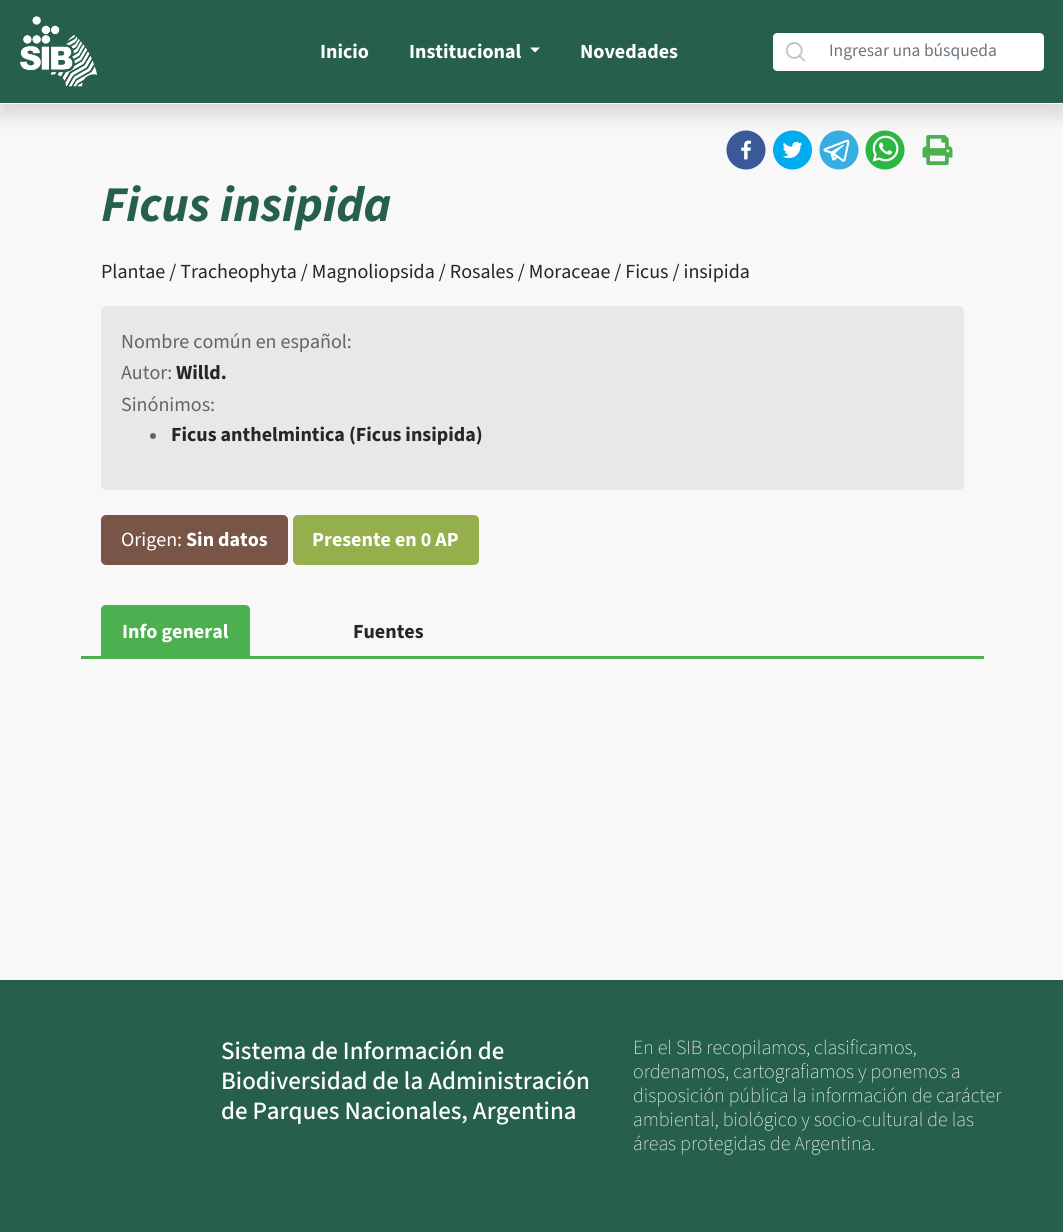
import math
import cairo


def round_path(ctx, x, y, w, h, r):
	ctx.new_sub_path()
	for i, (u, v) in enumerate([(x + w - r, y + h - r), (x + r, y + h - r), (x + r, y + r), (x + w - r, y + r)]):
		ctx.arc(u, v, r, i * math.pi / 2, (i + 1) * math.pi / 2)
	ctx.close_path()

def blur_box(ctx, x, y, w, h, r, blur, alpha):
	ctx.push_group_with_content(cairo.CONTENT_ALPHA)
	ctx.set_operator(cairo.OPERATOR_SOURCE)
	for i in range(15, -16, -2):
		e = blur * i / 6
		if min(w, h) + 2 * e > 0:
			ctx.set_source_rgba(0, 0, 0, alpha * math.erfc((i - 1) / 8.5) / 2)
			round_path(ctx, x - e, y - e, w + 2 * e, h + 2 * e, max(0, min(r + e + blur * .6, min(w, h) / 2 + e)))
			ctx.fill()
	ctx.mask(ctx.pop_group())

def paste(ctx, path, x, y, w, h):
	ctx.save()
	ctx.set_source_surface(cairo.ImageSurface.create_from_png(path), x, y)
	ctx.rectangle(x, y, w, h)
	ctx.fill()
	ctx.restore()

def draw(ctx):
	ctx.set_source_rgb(0.969, 0.969, 0.969)
	ctx.paint()
	ctx.set_source_rgb(0, 0, 0)
	blur_box(ctx, 0, 10, 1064, 104, 0, 10, 0.15)
	ctx.set_source_rgb(0.153, 0.373, 0.31)
	ctx.rectangle(0, 0, 1063, 103)
	ctx.fill()
	ctx.set_source_rgb(1, 1, 1)
	ctx.rectangle(0, 103, 1063, 1)
	ctx.fill()
	paste(ctx, 'media/1.png', 20, 16, 77, 71)
	ctx.select_font_face('Source Sans 3', cairo.FONT_SLANT_NORMAL, cairo.FONT_WEIGHT_BOLD)
	ctx.set_font_size(20)
	ctx.move_to(320, 58)
	ctx.show_text('Inicio')
	ctx.move_to(409, 58)
	ctx.show_text('Institucional')
	ctx.new_path()
	ctx.move_to(530, 47.5)
	ctx.line_to(540, 47.5)
	ctx.line_to(535, 52.5)
	ctx.close_path()
	ctx.fill()
	ctx.move_to(580, 58)
	ctx.show_text('Novedades')
	ctx.new_path()
	ctx.move_to(777, 33)
	ctx.line_to(819, 33)
	ctx.line_to(819, 71)
	ctx.line_to(777, 71)
	ctx.curve_to(775, 71, 773, 69, 773, 67)
	ctx.line_to(773, 37)
	ctx.curve_to(773, 35, 775, 33, 777, 33)
	ctx.close_path()
	ctx.fill()
	paste(ctx, 'media/2.png', 785, 42, 21, 20)
	ctx.new_path()
	ctx.move_to(819, 33)
	ctx.line_to(1040, 33)
	ctx.curve_to(1042, 33, 1044, 35, 1044, 37)
	ctx.line_to(1044, 67)
	ctx.curve_to(1044, 69, 1042, 71, 1040, 71)
	ctx.line_to(819, 71)
	ctx.close_path()
	ctx.fill()
	ctx.select_font_face('Source Sans 3')
	ctx.set_font_size(17.5)
	ctx.set_source_rgb(0.424, 0.459, 0.49)
	ctx.move_to(829, 56)
	ctx.show_text('Ingresar una búsqueda')
	paste(ctx, 'media/3.png', 726, 130, 40, 40)
	paste(ctx, 'media/4.png', 773, 130, 39, 40)
	paste(ctx, 'media/5.png', 819, 130, 40, 40)
	paste(ctx, 'media/6.png', 865, 130, 40, 40)
	paste(ctx, 'media/7.png', 922, 135, 31, 30)
	ctx.select_font_face('Source Sans 3', cairo.FONT_SLANT_ITALIC, cairo.FONT_WEIGHT_BOLD)
	ctx.set_font_size(50)
	ctx.set_source_rgb(0.153, 0.373, 0.31)
	ctx.move_to(101, 221)
	ctx.show_text('Ficus insipida')
	ctx.select_font_face('Source Sans 3')
	ctx.set_font_size(20)
	ctx.set_source_rgb(0.149, 0.149, 0.149)
	ctx.move_to(101, 278)
	ctx.show_text('Plantae / Tracheophyta / Magnoliopsida / Rosales / Moraceae / Ficus / insipida')
	ctx.set_source_rgb(0.91, 0.91, 0.91)
	round_path(ctx, 101, 306, 863, 184, 5)
	ctx.fill()
	ctx.set_source_rgb(0.392, 0.392, 0.392)
	ctx.move_to(121, 348)
	ctx.show_text('Nombre común en español:')
	ctx.move_to(121, 379)
	ctx.show_text('Autor:')
	ctx.select_font_face('Source Sans 3', cairo.FONT_SLANT_NORMAL, cairo.FONT_WEIGHT_BOLD)
	ctx.set_source_rgb(0.149, 0.149, 0.149)
	ctx.move_to(176, 379)
	ctx.show_text('Willd.')
	ctx.select_font_face('Source Sans 3')
	ctx.set_source_rgb(0.392, 0.392, 0.392)
	ctx.move_to(121, 411)
	ctx.show_text('Sinónimos:')
	ctx.new_path()
	ctx.arc(153, 436, 3, 0, 2 * math.pi)
	ctx.fill()
	ctx.select_font_face('Source Sans 3', cairo.FONT_SLANT_NORMAL, cairo.FONT_WEIGHT_BOLD)
	ctx.set_source_rgb(0.149, 0.149, 0.149)
	ctx.move_to(171, 441)
	ctx.show_text('Ficus anthelmintica (Ficus insipida)')
	ctx.set_source_rgb(0.475, 0.333, 0.282)
	round_path(ctx, 101, 515, 187, 50, 5)
	ctx.fill()
	ctx.select_font_face('Source Sans 3')
	ctx.set_source_rgb(1, 1, 1)
	ctx.move_to(121, 546)
	ctx.show_text('Origen:')
	ctx.select_font_face('Source Sans 3', cairo.FONT_SLANT_NORMAL, cairo.FONT_WEIGHT_BOLD)
	ctx.move_to(186, 546)
	ctx.show_text('Sin datos')
	ctx.set_source_rgb(0.584, 0.686, 0.298)
	round_path(ctx, 293, 515, 186, 50, 5)
	ctx.fill()
	ctx.set_source_rgb(1, 1, 1)
	ctx.move_to(312, 546)
	ctx.show_text('Presente en 0 AP')
	ctx.set_source_rgb(0.298, 0.686, 0.314)
	ctx.rectangle(81, 656, 903, 3)
	ctx.fill()
	ctx.new_path()
	ctx.move_to(106, 605)
	ctx.line_to(245, 605)
	ctx.curve_to(248, 605, 250, 607, 250, 610)
	ctx.line_to(250, 656)
	ctx.line_to(101, 656)
	ctx.line_to(101, 610)
	ctx.curve_to(101, 607, 103, 605, 106, 605)
	ctx.close_path()
	ctx.fill()
	ctx.set_source_rgb(1, 1, 1)
	ctx.move_to(122, 638)
	ctx.show_text('Info general')
	ctx.set_source_rgb(0.149, 0.149, 0.149)
	ctx.move_to(353, 638)
	ctx.show_text('Fuentes')
	ctx.set_source_rgb(0.153, 0.373, 0.31)
	ctx.rectangle(0, 980, 1063, 252)
	ctx.fill()
	ctx.select_font_face('Source Sans 3 Medium')
	ctx.set_font_size(25)
	ctx.set_source_rgb(1, 1, 1)
	for x, y, s in [
		(221, 1059, 'Sistema de Información de'),
		(221, 1089, 'Biodiversidad de la Administración'),
		(221, 1119, 'de Parques Nacionales, Argentina'),
	]:
		ctx.move_to(x, y)
		ctx.show_text(s)
	ctx.select_font_face('Source Sans 3 ExtraLight')
	ctx.set_font_size(20)
	for x, y, s in [
		(633, 1054, 'En el SIB recopilamos, clasificamos,'),
		(633, 1078, 'ordenamos, cartografiamos y ponemos a'),
		(633, 1102, 'disposición pública la información de carácter'),
		(633, 1126, 'ambiental, biológico y socio-cultural de las'),
		(633, 1150, 'áreas protegidas de Argentina.'),
	]:
		ctx.move_to(x, y)
		ctx.show_text(s)


surface = cairo.ImageSurface(cairo.FORMAT_RGB24, 1063, 1232)
ctx = cairo.Context(surface)
options = cairo.FontOptions()
options.set_hint_metrics(cairo.HINT_METRICS_OFF)
options.set_hint_style(cairo.HINT_STYLE_NONE)
ctx.set_font_options(options)
ctx.set_miter_limit(4)
draw(ctx)
surface.write_to_png('image.png')
